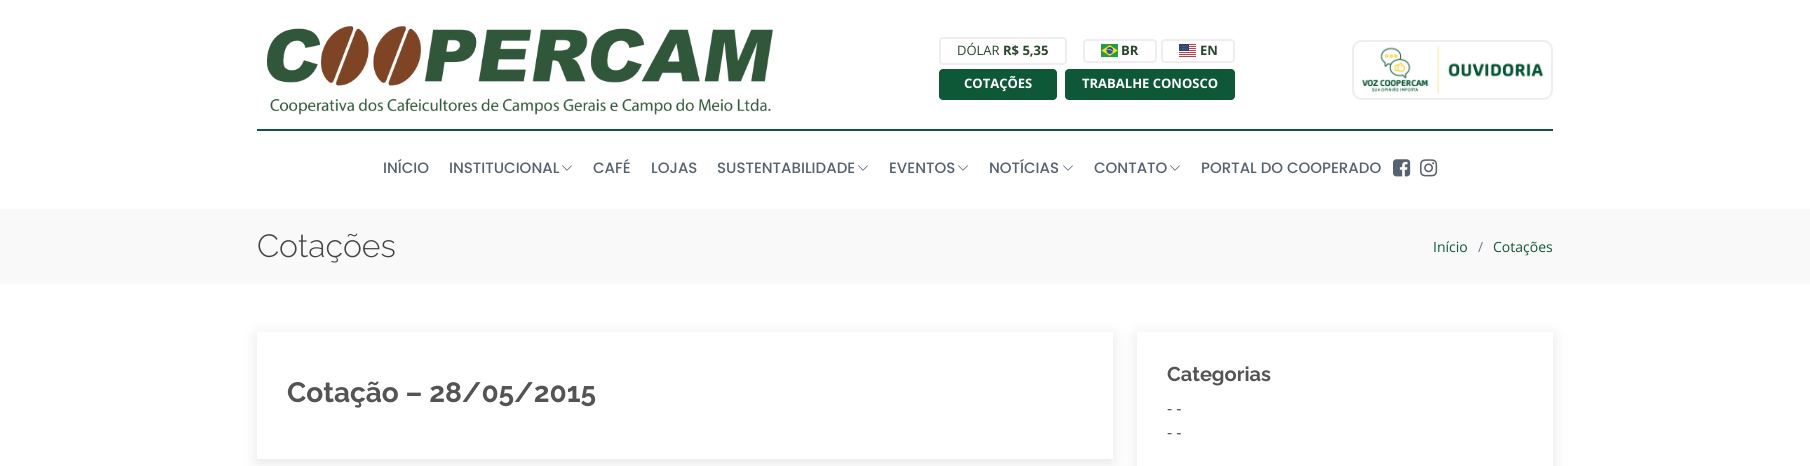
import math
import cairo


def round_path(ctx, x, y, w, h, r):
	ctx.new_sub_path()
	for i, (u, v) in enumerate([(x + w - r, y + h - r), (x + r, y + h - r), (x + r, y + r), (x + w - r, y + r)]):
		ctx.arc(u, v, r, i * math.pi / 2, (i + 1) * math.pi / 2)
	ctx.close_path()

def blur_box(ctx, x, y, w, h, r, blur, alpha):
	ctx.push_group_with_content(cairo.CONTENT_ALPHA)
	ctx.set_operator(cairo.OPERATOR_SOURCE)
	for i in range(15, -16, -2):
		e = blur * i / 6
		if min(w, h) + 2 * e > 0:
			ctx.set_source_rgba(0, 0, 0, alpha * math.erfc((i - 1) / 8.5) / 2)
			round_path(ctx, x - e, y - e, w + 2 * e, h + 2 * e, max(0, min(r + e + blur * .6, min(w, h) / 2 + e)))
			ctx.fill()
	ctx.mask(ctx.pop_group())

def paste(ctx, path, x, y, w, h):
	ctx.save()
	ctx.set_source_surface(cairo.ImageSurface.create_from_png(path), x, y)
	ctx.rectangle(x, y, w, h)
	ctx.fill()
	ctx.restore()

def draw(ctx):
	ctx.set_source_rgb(1, 1, 1)
	ctx.paint()
	paste(ctx, 'media/1.png', 267, 26, 506, 89)
	round_path(ctx, 940, 38, 126, 26, 3)
	ctx.set_source_rgb(0.933, 0.933, 0.933)
	ctx.stroke()
	ctx.select_font_face('Open Sans')
	ctx.set_font_size(13)
	ctx.set_source_rgb(0.157, 0.275, 0.169)
	ctx.move_to(957, 55)
	ctx.show_text('DÓLAR')
	ctx.select_font_face('Open Sans', cairo.FONT_SLANT_NORMAL, cairo.FONT_WEIGHT_BOLD)
	ctx.move_to(1003, 55)
	ctx.show_text('R$ 5,35')
	round_path(ctx, 1084, 40, 72, 22, 3)
	ctx.set_source_rgb(0.933, 0.933, 0.933)
	ctx.stroke()
	paste(ctx, 'media/2.png', 1101, 44, 17, 13)
	ctx.set_source_rgb(0.157, 0.275, 0.169)
	ctx.move_to(1121, 55)
	ctx.show_text('BR')
	round_path(ctx, 1162, 40, 72, 22, 3)
	ctx.set_source_rgb(0.933, 0.933, 0.933)
	ctx.stroke()
	paste(ctx, 'media/3.png', 1179, 44, 17, 13)
	ctx.set_source_rgb(0.157, 0.275, 0.169)
	ctx.move_to(1200, 55)
	ctx.show_text('EN')
	ctx.set_source_rgb(0.055, 0.345, 0.22)
	round_path(ctx, 939, 69, 118, 31, 4)
	ctx.fill()
	ctx.set_source_rgb(1, 1, 1)
	ctx.move_to(964, 88)
	ctx.show_text('COTAÇÕES')
	ctx.set_source_rgb(0.055, 0.345, 0.22)
	round_path(ctx, 1065, 69, 170, 31, 4)
	ctx.fill()
	ctx.set_source_rgb(1, 1, 1)
	ctx.move_to(1082, 88)
	ctx.show_text('TRABALHE CONOSCO')
	round_path(ctx, 1353, 41, 199, 58, 9)
	ctx.set_source_rgb(0.933, 0.933, 0.933)
	ctx.stroke()
	paste(ctx, 'media/4.png', 1359, 42, 187, 56)
	ctx.set_source_rgb(0.055, 0.345, 0.22)
	ctx.rectangle(257, 129, 1296, 2)
	ctx.fill()
	ctx.select_font_face('Poppins Medium')
	ctx.set_font_size(15)
	ctx.set_source_rgb(0.333, 0.384, 0.439)
	ctx.move_to(383, 173)
	ctx.show_text('INÍCIO')
	ctx.move_to(449, 173)
	ctx.show_text('INSTITUCIONAL')
	paste(ctx, 'media/5.png', 562, 165, 10, 6)
	for x, y, s in [
		(593, 173, 'CAFÉ'),
		(651, 173, 'LOJAS'),
		(717, 173, 'SUSTENTABILIDADE'),
	]:
		ctx.move_to(x, y)
		ctx.show_text(s)
	paste(ctx, 'media/5.png', 858, 165, 10, 6)
	ctx.move_to(889, 173)
	ctx.show_text('EVENTOS')
	paste(ctx, 'media/5.png', 958, 165, 10, 6)
	ctx.move_to(989, 173)
	ctx.show_text('NOTÍCIAS')
	paste(ctx, 'media/5.png', 1063, 165, 10, 6)
	ctx.move_to(1094, 173)
	ctx.show_text('CONTATO')
	paste(ctx, 'media/5.png', 1170, 165, 10, 6)
	ctx.move_to(1201, 173)
	ctx.show_text('PORTAL DO COOPERADO')
	paste(ctx, 'media/6.png', 1393, 159, 18, 18)
	paste(ctx, 'media/7.png', 1420, 159, 18, 18)
	ctx.set_source_rgb(0.973, 0.976, 0.98)
	ctx.rectangle(0, 209, 1810, 75)
	ctx.fill()
	ctx.select_font_face('Raleway Light')
	ctx.set_font_size(32)
	ctx.set_source_rgb(0.267, 0.267, 0.267)
	ctx.move_to(257, 257)
	ctx.show_text('Cotações')
	ctx.select_font_face('Open Sans')
	ctx.set_font_size(14)
	ctx.set_source_rgb(0.059, 0.341, 0.22)
	ctx.move_to(1433, 252)
	ctx.show_text('Início')
	ctx.set_source_rgb(0.42, 0.482, 0.553)
	ctx.move_to(1478, 252)
	ctx.show_text('/')
	ctx.set_source_rgb(0.059, 0.341, 0.22)
	ctx.move_to(1493, 252)
	ctx.show_text('Cotações')
	ctx.save()
	ctx.set_fill_rule(cairo.FILL_RULE_EVEN_ODD)
	ctx.new_path()
	ctx.move_to(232, 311)
	ctx.line_to(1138, 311)
	ctx.line_to(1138, 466)
	ctx.line_to(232, 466)
	ctx.close_path()
	ctx.move_to(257, 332)
	ctx.line_to(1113, 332)
	ctx.line_to(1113, 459)
	ctx.line_to(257, 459)
	ctx.close_path()
	ctx.clip()
	ctx.set_source_rgb(0, 0, 0)
	blur_box(ctx, 257, 336, 856, 127, 0, 8, 0.1)
	ctx.restore()
	ctx.select_font_face('Raleway', cairo.FONT_SLANT_NORMAL, cairo.FONT_WEIGHT_BOLD)
	ctx.set_font_size(28)
	ctx.set_source_rgb(0.329, 0.329, 0.329)
	ctx.move_to(287, 402)
	ctx.show_text('Cotação – 28/05/2015')
	ctx.save()
	ctx.set_fill_rule(cairo.FILL_RULE_EVEN_ODD)
	ctx.new_path()
	ctx.move_to(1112, 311)
	ctx.line_to(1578, 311)
	ctx.line_to(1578, 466)
	ctx.line_to(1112, 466)
	ctx.close_path()
	ctx.move_to(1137, 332)
	ctx.line_to(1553, 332)
	ctx.line_to(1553, 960)
	ctx.line_to(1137, 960)
	ctx.close_path()
	ctx.clip()
	ctx.set_source_rgb(0, 0, 0)
	blur_box(ctx, 1137, 336, 416, 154, 0, 8, 0.1)
	ctx.restore()
	ctx.set_font_size(20)
	ctx.move_to(1167, 381)
	ctx.show_text('Categorias')
	ctx.select_font_face('Open Sans')
	ctx.set_font_size(16)
	ctx.set_source_rgb(0.267, 0.267, 0.267)
	ctx.move_to(1167, 414)
	ctx.show_text('- -')
	ctx.move_to(1167, 438)
	ctx.show_text('- -')


surface = cairo.ImageSurface(cairo.FORMAT_RGB24, 1810, 466)
ctx = cairo.Context(surface)
options = cairo.FontOptions()
options.set_hint_metrics(cairo.HINT_METRICS_OFF)
options.set_hint_style(cairo.HINT_STYLE_NONE)
ctx.set_font_options(options)
ctx.set_miter_limit(4)
draw(ctx)
surface.write_to_png('image.png')
